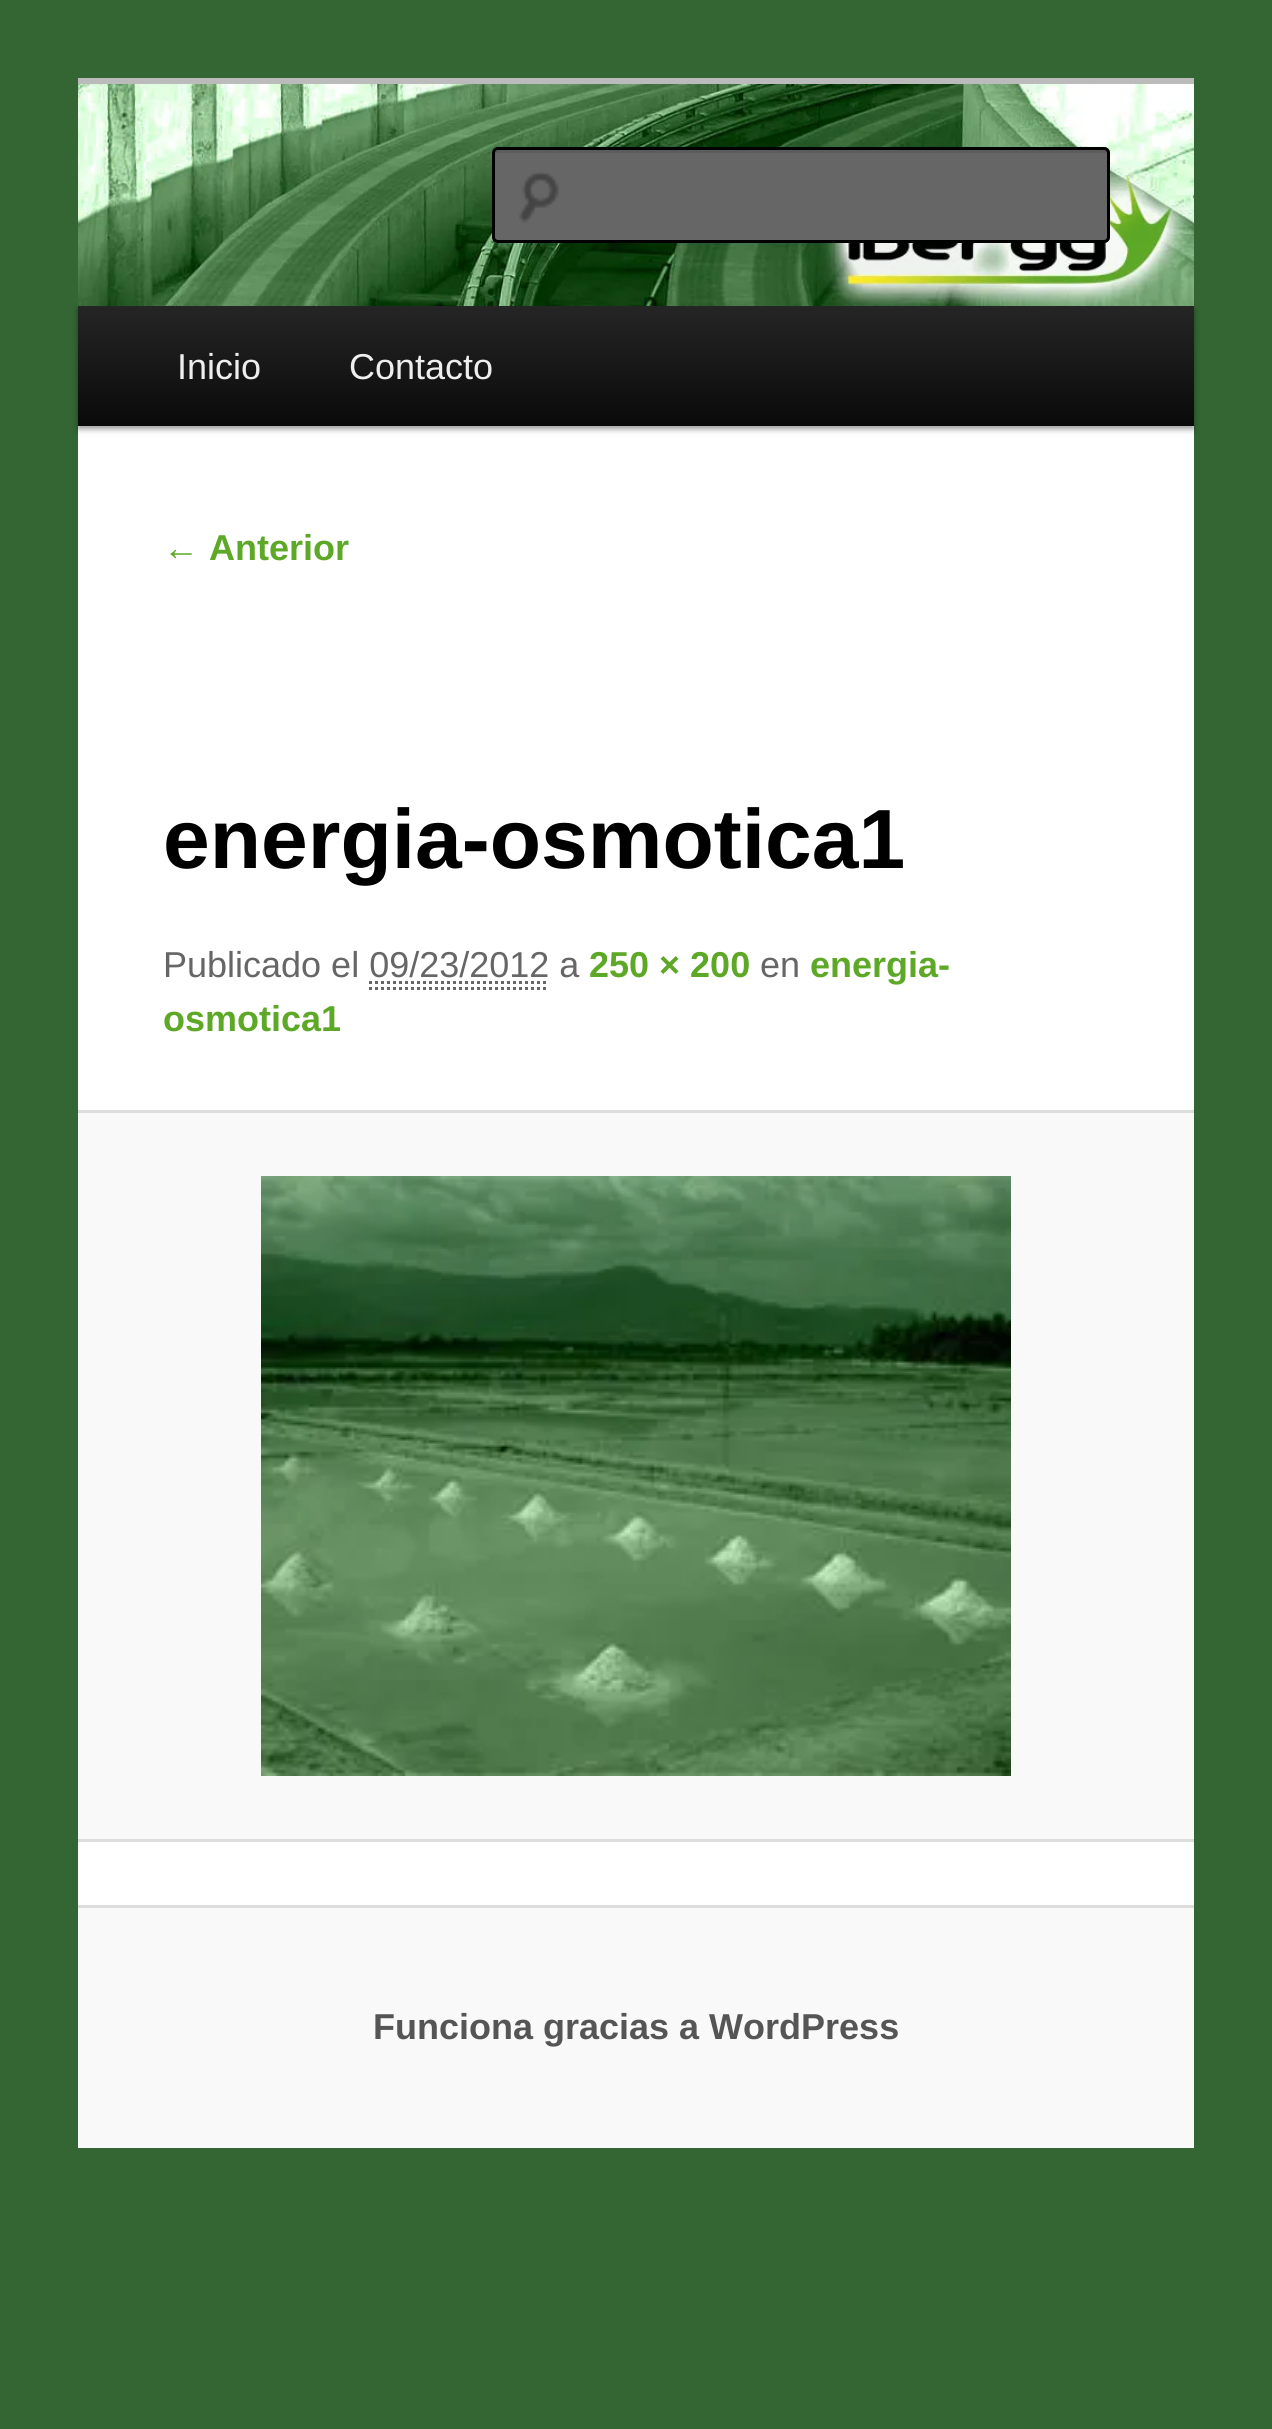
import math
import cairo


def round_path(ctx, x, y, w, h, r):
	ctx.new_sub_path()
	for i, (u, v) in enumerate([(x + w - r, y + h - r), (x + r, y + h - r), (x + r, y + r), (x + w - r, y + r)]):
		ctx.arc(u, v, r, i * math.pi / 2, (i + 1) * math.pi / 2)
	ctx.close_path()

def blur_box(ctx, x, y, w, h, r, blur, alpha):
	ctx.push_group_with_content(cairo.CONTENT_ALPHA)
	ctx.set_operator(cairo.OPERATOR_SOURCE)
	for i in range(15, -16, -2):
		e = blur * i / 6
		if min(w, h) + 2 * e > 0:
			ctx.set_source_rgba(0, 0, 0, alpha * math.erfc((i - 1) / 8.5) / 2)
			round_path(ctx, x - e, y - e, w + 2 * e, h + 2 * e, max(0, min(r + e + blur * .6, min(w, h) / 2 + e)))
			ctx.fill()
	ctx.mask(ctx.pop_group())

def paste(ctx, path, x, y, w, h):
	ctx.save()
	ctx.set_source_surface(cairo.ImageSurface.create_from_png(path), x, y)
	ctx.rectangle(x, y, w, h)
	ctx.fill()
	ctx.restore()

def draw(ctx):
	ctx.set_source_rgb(0.2, 0.4, 0.2)
	ctx.paint()
	ctx.set_source_rgb(1, 1, 1)
	ctx.rectangle(78, 426, 1116, 1479)
	ctx.fill()
	ctx.set_source_rgb(0.733, 0.733, 0.733)
	ctx.rectangle(78, 78, 1116, 6)
	ctx.fill()
	ctx.set_source_rgb(0, 0, 0)
	blur_box(ctx, 78, 309, 1116, 120, 0, 3, 0.4)
	paste(ctx, 'media/1.png', 78, 84, 1116, 222)
	ctx.set_source_rgb(0.4, 0.4, 0.4)
	round_path(ctx, 492, 147, 618, 96, 6)
	ctx.fill()
	paste(ctx, 'media/2.png', 519, 172, 40, 51)
	ctx.set_source_rgb(0.361, 0.361, 0.361)
	ctx.new_path()
	ctx.move_to(498, 153)
	ctx.line_to(1104, 153)
	ctx.curve_to(1106, 153, 1107, 154, 1107, 156)
	ctx.line_to(1106, 151)
	ctx.line_to(1104, 150)
	ctx.line_to(498, 150)
	ctx.curve_to(495, 150, 495, 154, 495, 156)
	ctx.curve_to(495, 154, 496, 153, 498, 153)
	ctx.close_path()
	ctx.fill()
	round_path(ctx, 493.5, 148.5, 615, 93, 4.5)
	ctx.set_source_rgb(0, 0, 0)
	ctx.set_line_width(3)
	ctx.stroke()
	gradient = cairo.LinearGradient(636, 306, 636, 426)
	gradient.add_color_stop_rgba(0, 0.145, 0.145, 0.145, 1)
	gradient.add_color_stop_rgba(1, 0.039, 0.039, 0.039, 1)
	ctx.set_source(gradient)
	ctx.rectangle(78, 306, 1116, 120)
	ctx.fill()
	ctx.select_font_face('Liberation Sans')
	ctx.set_font_size(36)
	ctx.set_source_rgb(0.933, 0.933, 0.933)
	ctx.move_to(177, 379)
	ctx.show_text('Inicio')
	ctx.move_to(349, 379)
	ctx.show_text('Contacto')
	ctx.select_font_face('Liberation Sans', cairo.FONT_SLANT_NORMAL, cairo.FONT_WEIGHT_BOLD)
	ctx.set_source_rgb(0.365, 0.659, 0.149)
	ctx.move_to(163, 560)
	ctx.show_text('← Anterior')
	ctx.set_font_size(84)
	ctx.set_source_rgb(0, 0, 0)
	ctx.move_to(163, 868)
	ctx.show_text('energia-osmotica1')
	ctx.select_font_face('Liberation Sans')
	ctx.set_font_size(36)
	ctx.set_source_rgb(0.4, 0.4, 0.4)
	ctx.move_to(163, 977)
	ctx.show_text('Publicado el 09/23/2012 a')
	ctx.select_font_face('Liberation Sans', cairo.FONT_SLANT_NORMAL, cairo.FONT_WEIGHT_BOLD)
	ctx.set_source_rgb(0.365, 0.659, 0.149)
	ctx.move_to(589, 977)
	ctx.show_text('250 × 200')
	ctx.select_font_face('Liberation Sans')
	ctx.set_source_rgb(0.4, 0.4, 0.4)
	ctx.move_to(760, 977)
	ctx.show_text('en')
	ctx.select_font_face('Liberation Sans', cairo.FONT_SLANT_NORMAL, cairo.FONT_WEIGHT_BOLD)
	ctx.set_source_rgb(0.365, 0.659, 0.149)
	ctx.move_to(810, 977)
	ctx.show_text('energia-')
	ctx.new_path()
	ctx.move_to(369, 982.5)
	ctx.line_to(549, 982.5)
	ctx.set_source_rgb(0.4, 0.4, 0.4)
	ctx.set_dash([3, 3])
	ctx.stroke()
	ctx.new_path()
	ctx.move_to(369, 988.5)
	ctx.line_to(549, 988.5)
	ctx.stroke()
	ctx.set_source_rgb(0.365, 0.659, 0.149)
	ctx.move_to(163, 1031)
	ctx.show_text('osmotica1')
	ctx.set_source_rgb(0.976, 0.976, 0.976)
	ctx.rectangle(78, 1113, 1116, 726)
	ctx.fill()
	ctx.set_source_rgb(0.867, 0.867, 0.867)
	ctx.rectangle(78, 1110, 1116, 3)
	ctx.rectangle(78, 1839, 1116, 3)
	ctx.fill()
	paste(ctx, 'media/3.png', 261, 1176, 750, 600)
	ctx.set_source_rgb(0.976, 0.976, 0.976)
	ctx.rectangle(78, 1908, 1116, 240)
	ctx.fill()
	ctx.set_source_rgb(0.867, 0.867, 0.867)
	ctx.rectangle(78, 1905, 1116, 3)
	ctx.fill()
	ctx.set_source_rgb(0.333, 0.333, 0.333)
	ctx.move_to(373, 2039)
	ctx.show_text('Funciona gracias a WordPress')


surface = cairo.ImageSurface(cairo.FORMAT_RGB24, 1272, 2429)
ctx = cairo.Context(surface)
options = cairo.FontOptions()
options.set_hint_metrics(cairo.HINT_METRICS_OFF)
options.set_hint_style(cairo.HINT_STYLE_NONE)
ctx.set_font_options(options)
ctx.set_miter_limit(4)
draw(ctx)
surface.write_to_png('image.png')
